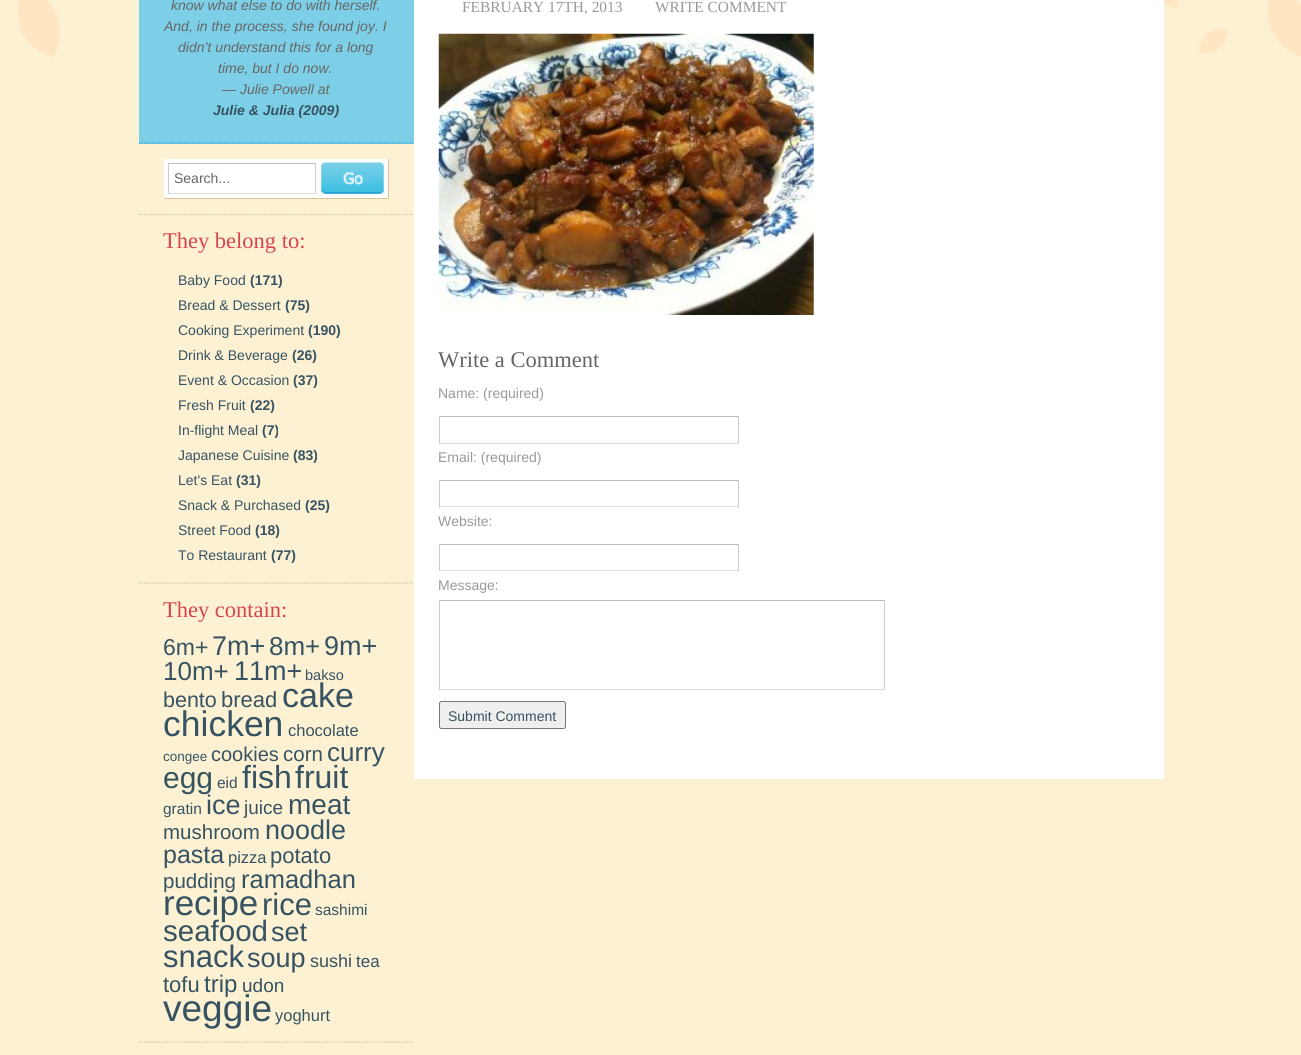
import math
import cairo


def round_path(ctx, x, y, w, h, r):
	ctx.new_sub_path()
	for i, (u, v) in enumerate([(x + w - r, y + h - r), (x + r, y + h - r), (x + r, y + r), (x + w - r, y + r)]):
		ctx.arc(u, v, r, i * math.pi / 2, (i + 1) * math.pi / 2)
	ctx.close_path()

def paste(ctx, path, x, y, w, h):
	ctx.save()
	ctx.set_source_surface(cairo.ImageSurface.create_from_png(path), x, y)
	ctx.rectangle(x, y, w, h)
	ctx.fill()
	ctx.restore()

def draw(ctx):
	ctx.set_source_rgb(0.988, 0.945, 0.827)
	ctx.paint()
	paste(ctx, 'media/1.png', 17, 0, 1284, 58)
	ctx.set_source_rgb(0.49, 0.812, 0.906)
	ctx.rectangle(139, 0, 275, 144)
	ctx.fill()
	ctx.new_path()
	ctx.move_to(139, 143)
	ctx.line_to(414, 143)
	ctx.set_source_rgb(0.122, 0.624, 0.831)
	ctx.set_line_width(1.2)
	ctx.set_dash([1.25, 1.25])
	ctx.stroke()
	ctx.select_font_face('Liberation Sans', cairo.FONT_SLANT_ITALIC)
	ctx.set_font_size(14)
	ctx.set_source_rgb(0.4, 0.4, 0.4)
	for x, y, s in [
		(171, 10, 'know what else to do with herself.'),
		(164, 31, 'And, in the process, she found joy. I'),
		(178, 52, 'didn’t understand this for a long'),
		(218, 73, 'time, but I do now.'),
		(222, 94, '— Julie Powell at'),
	]:
		ctx.move_to(x, y)
		ctx.show_text(s)
	ctx.select_font_face('Liberation Sans', cairo.FONT_SLANT_ITALIC, cairo.FONT_WEIGHT_BOLD)
	ctx.set_source_rgb(0.216, 0.325, 0.384)
	ctx.move_to(213, 115)
	ctx.show_text('Julie & Julia (2009)')
	ctx.new_path()
	ctx.move_to(139, 214.5)
	ctx.line_to(414, 214.5)
	ctx.set_source_rgb(0.863, 0.769, 0.604)
	ctx.stroke()
	ctx.set_source_rgb(1, 1, 1)
	ctx.rectangle(164, 159, 224, 39)
	ctx.fill()
	ctx.set_source_rgb(0.863, 0.769, 0.604)
	ctx.rectangle(388, 159, 1, 40)
	ctx.rectangle(164, 198, 225, 1)
	ctx.fill()
	ctx.set_source_rgb(0.741, 0.741, 0.741)
	ctx.rectangle(168, 163, 148, 1)
	ctx.fill()
	ctx.set_source_rgb(0.8, 0.8, 0.8)
	ctx.rectangle(315, 163, 1, 31)
	ctx.fill()
	ctx.set_source_rgb(0.867, 0.867, 0.867)
	ctx.rectangle(168, 193, 148, 1)
	ctx.fill()
	ctx.set_source_rgb(0.8, 0.8, 0.8)
	ctx.rectangle(168, 163, 1, 31)
	ctx.fill()
	paste(ctx, 'media/2.png', 321, 162, 63, 32)
	ctx.select_font_face('Liberation Sans')
	ctx.set_source_rgb(0.4, 0.4, 0.4)
	ctx.move_to(174, 183)
	ctx.show_text('Search...')
	ctx.new_path()
	ctx.move_to(139, 583)
	ctx.line_to(414, 583)
	ctx.set_source_rgb(0.863, 0.769, 0.604)
	ctx.stroke()
	ctx.select_font_face('Liberation Serif')
	ctx.set_font_size(22.5)
	ctx.set_source_rgb(0.855, 0.267, 0.31)
	ctx.move_to(163, 248)
	ctx.show_text('They belong to:')
	ctx.select_font_face('Liberation Sans')
	ctx.set_font_size(14)
	ctx.set_source_rgb(0.216, 0.325, 0.384)
	ctx.move_to(178, 285)
	ctx.show_text('Baby Food')
	ctx.select_font_face('Liberation Sans', cairo.FONT_SLANT_NORMAL, cairo.FONT_WEIGHT_BOLD)
	ctx.move_to(250, 285)
	ctx.show_text('(171)')
	ctx.select_font_face('Liberation Sans')
	ctx.move_to(178, 310)
	ctx.show_text('Bread & Dessert')
	ctx.select_font_face('Liberation Sans', cairo.FONT_SLANT_NORMAL, cairo.FONT_WEIGHT_BOLD)
	ctx.move_to(285, 310)
	ctx.show_text('(75)')
	ctx.select_font_face('Liberation Sans')
	ctx.move_to(178, 335)
	ctx.show_text('Cooking Experiment')
	ctx.select_font_face('Liberation Sans', cairo.FONT_SLANT_NORMAL, cairo.FONT_WEIGHT_BOLD)
	ctx.move_to(308, 335)
	ctx.show_text('(190)')
	ctx.select_font_face('Liberation Sans')
	ctx.move_to(178, 360)
	ctx.show_text('Drink & Beverage')
	ctx.select_font_face('Liberation Sans', cairo.FONT_SLANT_NORMAL, cairo.FONT_WEIGHT_BOLD)
	ctx.move_to(292, 360)
	ctx.show_text('(26)')
	ctx.select_font_face('Liberation Sans')
	ctx.move_to(178, 385)
	ctx.show_text('Event & Occasion')
	ctx.select_font_face('Liberation Sans', cairo.FONT_SLANT_NORMAL, cairo.FONT_WEIGHT_BOLD)
	ctx.move_to(293, 385)
	ctx.show_text('(37)')
	ctx.select_font_face('Liberation Sans')
	ctx.move_to(178, 410)
	ctx.show_text('Fresh Fruit')
	ctx.select_font_face('Liberation Sans', cairo.FONT_SLANT_NORMAL, cairo.FONT_WEIGHT_BOLD)
	ctx.move_to(250, 410)
	ctx.show_text('(22)')
	ctx.select_font_face('Liberation Sans')
	ctx.move_to(178, 435)
	ctx.show_text('In-flight Meal')
	ctx.select_font_face('Liberation Sans', cairo.FONT_SLANT_NORMAL, cairo.FONT_WEIGHT_BOLD)
	ctx.move_to(262, 435)
	ctx.show_text('(7)')
	ctx.select_font_face('Liberation Sans')
	ctx.move_to(178, 460)
	ctx.show_text('Japanese Cuisine')
	ctx.select_font_face('Liberation Sans', cairo.FONT_SLANT_NORMAL, cairo.FONT_WEIGHT_BOLD)
	ctx.move_to(293, 460)
	ctx.show_text('(83)')
	ctx.select_font_face('Liberation Sans')
	ctx.move_to(178, 485)
	ctx.show_text('Let\'s Eat')
	ctx.select_font_face('Liberation Sans', cairo.FONT_SLANT_NORMAL, cairo.FONT_WEIGHT_BOLD)
	ctx.move_to(236, 485)
	ctx.show_text('(31)')
	ctx.select_font_face('Liberation Sans')
	ctx.move_to(178, 510)
	ctx.show_text('Snack & Purchased')
	ctx.select_font_face('Liberation Sans', cairo.FONT_SLANT_NORMAL, cairo.FONT_WEIGHT_BOLD)
	ctx.move_to(305, 510)
	ctx.show_text('(25)')
	ctx.select_font_face('Liberation Sans')
	ctx.move_to(178, 535)
	ctx.show_text('Street Food')
	ctx.select_font_face('Liberation Sans', cairo.FONT_SLANT_NORMAL, cairo.FONT_WEIGHT_BOLD)
	ctx.move_to(255, 535)
	ctx.show_text('(18)')
	ctx.select_font_face('Liberation Sans')
	ctx.move_to(178, 560)
	ctx.show_text('To Restaurant')
	ctx.select_font_face('Liberation Sans', cairo.FONT_SLANT_NORMAL, cairo.FONT_WEIGHT_BOLD)
	ctx.move_to(271, 560)
	ctx.show_text('(77)')
	ctx.new_path()
	ctx.move_to(139, 1042)
	ctx.line_to(414, 1042)
	ctx.set_source_rgb(0.863, 0.769, 0.604)
	ctx.stroke()
	ctx.select_font_face('Liberation Serif')
	ctx.set_font_size(22.5)
	ctx.set_source_rgb(0.855, 0.267, 0.31)
	ctx.move_to(163, 617)
	ctx.show_text('They contain:')
	ctx.select_font_face('Liberation Sans')
	ctx.set_font_size(23)
	ctx.set_source_rgb(0.216, 0.325, 0.384)
	ctx.move_to(163, 655)
	ctx.show_text('6m+')
	ctx.set_font_size(27)
	ctx.move_to(212, 655)
	ctx.show_text('7m+')
	ctx.set_font_size(26)
	ctx.move_to(269, 655)
	ctx.show_text('8m+')
	ctx.set_font_size(27)
	ctx.move_to(324, 655)
	ctx.show_text('9m+')
	ctx.set_font_size(26)
	ctx.move_to(163, 680)
	ctx.show_text('10m+')
	ctx.set_font_size(27)
	ctx.move_to(234, 680)
	ctx.show_text('11m+')
	ctx.set_font_size(14.5)
	ctx.move_to(305, 680)
	ctx.show_text('bakso')
	ctx.set_font_size(21.5)
	ctx.move_to(163, 707)
	ctx.show_text('bento')
	ctx.set_font_size(22)
	ctx.move_to(221, 707)
	ctx.show_text('bread')
	ctx.set_font_size(34)
	ctx.move_to(282, 707)
	ctx.show_text('cake')
	ctx.set_font_size(35.5)
	ctx.move_to(163, 736)
	ctx.show_text('chicken')
	ctx.set_font_size(16.5)
	ctx.move_to(288, 736)
	ctx.show_text('chocolate')
	ctx.set_font_size(13.5)
	ctx.move_to(163, 761)
	ctx.show_text('congee')
	ctx.set_font_size(20)
	ctx.move_to(211, 761)
	ctx.show_text('cookies')
	ctx.set_font_size(20.5)
	ctx.move_to(283, 761)
	ctx.show_text('corn')
	ctx.set_font_size(26)
	ctx.move_to(327, 761)
	ctx.show_text('curry')
	ctx.set_font_size(30)
	ctx.move_to(163, 788)
	ctx.show_text('egg')
	ctx.set_font_size(15.5)
	ctx.move_to(217, 788)
	ctx.show_text('eid')
	ctx.set_font_size(32)
	ctx.move_to(242, 788)
	ctx.show_text('fish')
	ctx.move_to(295, 788)
	ctx.show_text('fruit')
	ctx.set_font_size(15.5)
	ctx.move_to(163, 814)
	ctx.show_text('gratin')
	ctx.set_font_size(27)
	ctx.move_to(206, 814)
	ctx.show_text('ice')
	ctx.set_font_size(19)
	ctx.move_to(244, 814)
	ctx.show_text('juice')
	ctx.set_font_size(28)
	ctx.move_to(288, 814)
	ctx.show_text('meat')
	ctx.set_font_size(20.5)
	ctx.move_to(163, 839)
	ctx.show_text('mushroom')
	ctx.set_font_size(27)
	ctx.move_to(265, 839)
	ctx.show_text('noodle')
	ctx.set_font_size(25)
	ctx.move_to(163, 863)
	ctx.show_text('pasta')
	ctx.set_font_size(16.5)
	ctx.move_to(228, 863)
	ctx.show_text('pizza')
	ctx.set_font_size(22)
	ctx.move_to(270, 863)
	ctx.show_text('potato')
	ctx.set_font_size(20.5)
	ctx.move_to(163, 888)
	ctx.show_text('pudding')
	ctx.set_font_size(25.5)
	ctx.move_to(241, 888)
	ctx.show_text('ramadhan')
	ctx.set_font_size(35)
	ctx.move_to(163, 915)
	ctx.show_text('recipe')
	ctx.set_font_size(31)
	ctx.move_to(262, 915)
	ctx.show_text('rice')
	ctx.set_font_size(15.5)
	ctx.move_to(315, 915)
	ctx.show_text('sashimi')
	ctx.set_font_size(29.5)
	ctx.move_to(163, 941)
	ctx.show_text('seafood')
	ctx.set_font_size(27)
	ctx.move_to(271, 941)
	ctx.show_text('set')
	ctx.set_font_size(31)
	ctx.move_to(163, 967)
	ctx.show_text('snack')
	ctx.set_font_size(27)
	ctx.move_to(247, 967)
	ctx.show_text('soup')
	ctx.set_font_size(18)
	ctx.move_to(310, 967)
	ctx.show_text('sushi')
	ctx.set_font_size(17)
	ctx.move_to(356, 967)
	ctx.show_text('tea')
	ctx.set_font_size(22)
	ctx.move_to(163, 992)
	ctx.show_text('tofu')
	ctx.set_font_size(24)
	ctx.move_to(204, 992)
	ctx.show_text('trip')
	ctx.set_font_size(19)
	ctx.move_to(242, 992)
	ctx.show_text('udon')
	ctx.set_font_size(37)
	ctx.move_to(163, 1021)
	ctx.show_text('veggie')
	ctx.set_font_size(16.5)
	ctx.move_to(275, 1021)
	ctx.show_text('yoghurt')
	ctx.set_source_rgb(1, 1, 1)
	ctx.rectangle(414, 0, 750, 779)
	ctx.fill()
	ctx.select_font_face('Liberation Serif')
	ctx.set_font_size(15.4)
	ctx.set_source_rgb(0.6, 0.6, 0.6)
	ctx.move_to(462, 12)
	ctx.show_text('FEBRUARY 17TH, 2013')
	ctx.move_to(655, 12)
	ctx.show_text('WRITE COMMENT')
	paste(ctx, 'media/3.png', 438, 33, 376, 282)
	ctx.set_font_size(22.5)
	ctx.set_source_rgb(0.4, 0.4, 0.4)
	ctx.move_to(438, 367)
	ctx.show_text('Write a Comment')
	ctx.select_font_face('Liberation Sans')
	ctx.set_font_size(14)
	ctx.set_source_rgb(0.6, 0.6, 0.6)
	ctx.move_to(438, 398)
	ctx.show_text('Name: (required)')
	ctx.set_source_rgb(0.741, 0.741, 0.741)
	ctx.rectangle(439, 416, 300, 1)
	ctx.fill()
	ctx.set_source_rgb(0.8, 0.8, 0.8)
	ctx.rectangle(738, 416, 1, 28)
	ctx.fill()
	ctx.set_source_rgb(0.867, 0.867, 0.867)
	ctx.rectangle(439, 443, 300, 1)
	ctx.fill()
	ctx.set_source_rgb(0.8, 0.8, 0.8)
	ctx.rectangle(439, 416, 1, 28)
	ctx.fill()
	ctx.set_source_rgb(0.6, 0.6, 0.6)
	ctx.move_to(438, 462)
	ctx.show_text('Email: (required)')
	ctx.set_source_rgb(0.741, 0.741, 0.741)
	ctx.rectangle(439, 480, 300, 1)
	ctx.fill()
	ctx.set_source_rgb(0.8, 0.8, 0.8)
	ctx.rectangle(738, 480, 1, 28)
	ctx.fill()
	ctx.set_source_rgb(0.867, 0.867, 0.867)
	ctx.rectangle(439, 506, 300, 1)
	ctx.fill()
	ctx.set_source_rgb(0.8, 0.8, 0.8)
	ctx.rectangle(439, 480, 1, 28)
	ctx.fill()
	ctx.set_source_rgb(0.6, 0.6, 0.6)
	ctx.move_to(438, 526)
	ctx.show_text('Website:')
	ctx.set_source_rgb(0.741, 0.741, 0.741)
	ctx.rectangle(439, 544, 300, 1)
	ctx.fill()
	ctx.set_source_rgb(0.8, 0.8, 0.8)
	ctx.rectangle(738, 544, 1, 27)
	ctx.fill()
	ctx.set_source_rgb(0.867, 0.867, 0.867)
	ctx.rectangle(439, 570, 300, 1)
	ctx.fill()
	ctx.set_source_rgb(0.8, 0.8, 0.8)
	ctx.rectangle(439, 544, 1, 27)
	ctx.fill()
	ctx.set_source_rgb(0.6, 0.6, 0.6)
	ctx.move_to(438, 590)
	ctx.show_text('Message:')
	ctx.set_source_rgb(0.741, 0.741, 0.741)
	ctx.rectangle(439, 600, 446, 1)
	ctx.fill()
	ctx.set_source_rgb(0.8, 0.8, 0.8)
	ctx.rectangle(884, 600, 1, 90)
	ctx.fill()
	ctx.set_source_rgb(0.867, 0.867, 0.867)
	ctx.rectangle(439, 689, 446, 1)
	ctx.fill()
	ctx.set_source_rgb(0.8, 0.8, 0.8)
	ctx.rectangle(439, 600, 1, 90)
	ctx.fill()
	ctx.set_source_rgb(0.937, 0.937, 0.937)
	round_path(ctx, 439.5, 701.5, 126, 27, 2)
	ctx.fill_preserve()
	ctx.set_source_rgb(0.463, 0.463, 0.463)
	ctx.set_line_width(1)
	ctx.set_dash([])
	ctx.stroke()
	ctx.set_source_rgb(0.216, 0.325, 0.384)
	ctx.move_to(448, 721)
	ctx.show_text('Submit Comment')


surface = cairo.ImageSurface(cairo.FORMAT_RGB24, 1301, 1055)
ctx = cairo.Context(surface)
options = cairo.FontOptions()
options.set_hint_metrics(cairo.HINT_METRICS_OFF)
options.set_hint_style(cairo.HINT_STYLE_NONE)
ctx.set_font_options(options)
ctx.set_miter_limit(4)
draw(ctx)
surface.write_to_png('image.png')
